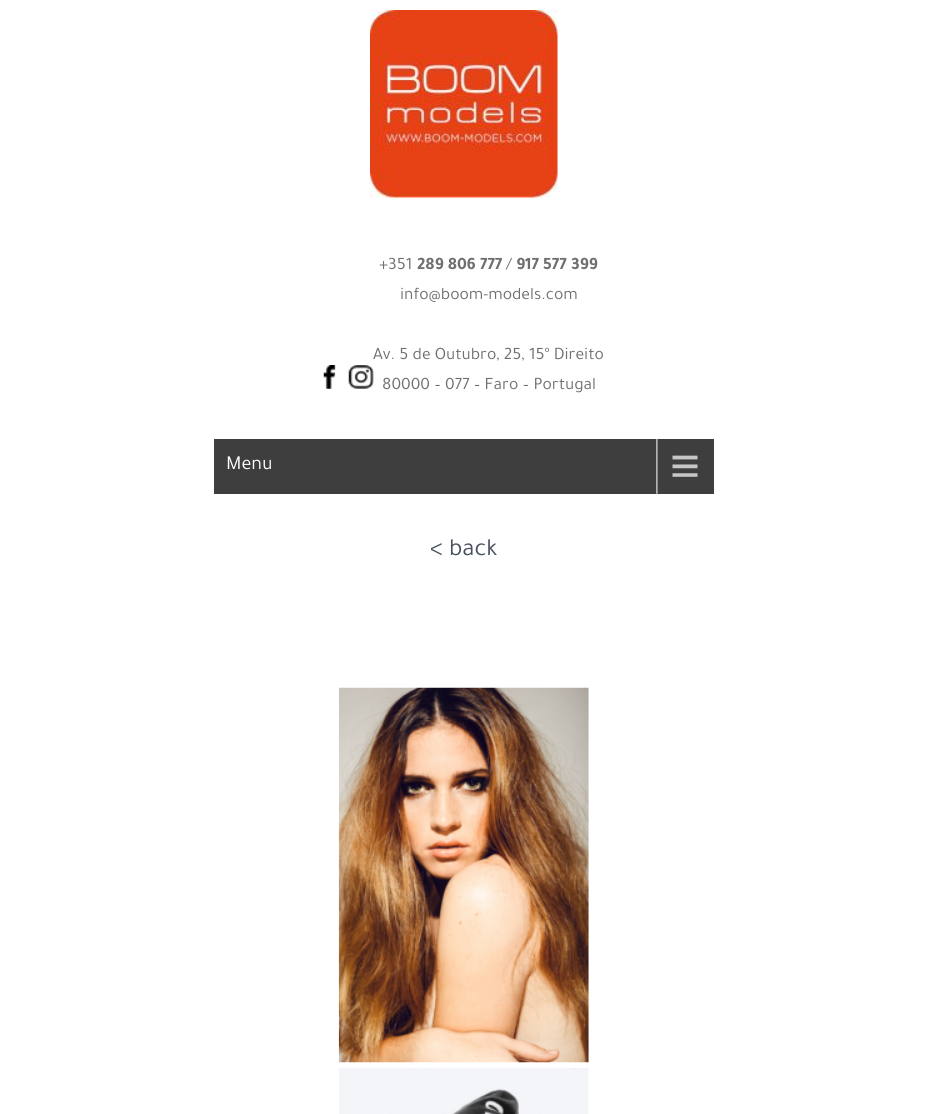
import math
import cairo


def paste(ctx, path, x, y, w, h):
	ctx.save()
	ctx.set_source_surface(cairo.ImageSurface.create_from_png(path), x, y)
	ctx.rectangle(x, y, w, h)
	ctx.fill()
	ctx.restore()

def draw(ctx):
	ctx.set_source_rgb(1, 1, 1)
	ctx.paint()
	paste(ctx, 'media/1.png', 370, 10, 188, 188)
	paste(ctx, 'media/2.png', 323, 365, 13, 24)
	paste(ctx, 'media/3.png', 348, 365, 26, 24)
	ctx.select_font_face('Tajawal')
	ctx.set_font_size(17.5)
	ctx.set_source_rgb(0.435, 0.435, 0.435)
	ctx.move_to(379, 269)
	ctx.show_text('+351')
	ctx.select_font_face('Tajawal', cairo.FONT_SLANT_NORMAL, cairo.FONT_WEIGHT_BOLD)
	ctx.move_to(417, 269)
	ctx.show_text('289 806 777')
	ctx.select_font_face('Tajawal')
	ctx.move_to(506, 269)
	ctx.show_text('/')
	ctx.select_font_face('Tajawal', cairo.FONT_SLANT_NORMAL, cairo.FONT_WEIGHT_BOLD)
	ctx.move_to(516, 269)
	ctx.show_text('917 577 399')
	ctx.select_font_face('Tajawal')
	for x, y, s in [
		(400, 299, 'info@boom-models.com'),
		(373, 359, 'Av. 5 de Outubro, 25, 15º Direito'),
		(382, 389, '80000 – 077 – Faro – Portugal'),
	]:
		ctx.move_to(x, y)
		ctx.show_text(s)
	ctx.set_source_rgb(0.243, 0.243, 0.243)
	ctx.rectangle(214, 439, 500, 55)
	ctx.fill()
	paste(ctx, 'media/4.png', 656, 438, 42, 56)
	ctx.set_font_size(20)
	ctx.set_source_rgb(1, 1, 1)
	ctx.move_to(226, 469)
	ctx.show_text('Menu')
	ctx.set_font_size(25)
	ctx.set_source_rgb(0.282, 0.31, 0.369)
	ctx.move_to(430, 555)
	ctx.show_text('< back')
	paste(ctx, 'media/5.png', 338, 687, 251, 376)
	paste(ctx, 'media/6.png', 339, 1067, 250, 47)


surface = cairo.ImageSurface(cairo.FORMAT_RGB24, 927, 1114)
ctx = cairo.Context(surface)
options = cairo.FontOptions()
options.set_hint_metrics(cairo.HINT_METRICS_OFF)
options.set_hint_style(cairo.HINT_STYLE_NONE)
ctx.set_font_options(options)
ctx.set_miter_limit(4)
draw(ctx)
surface.write_to_png('image.png')
